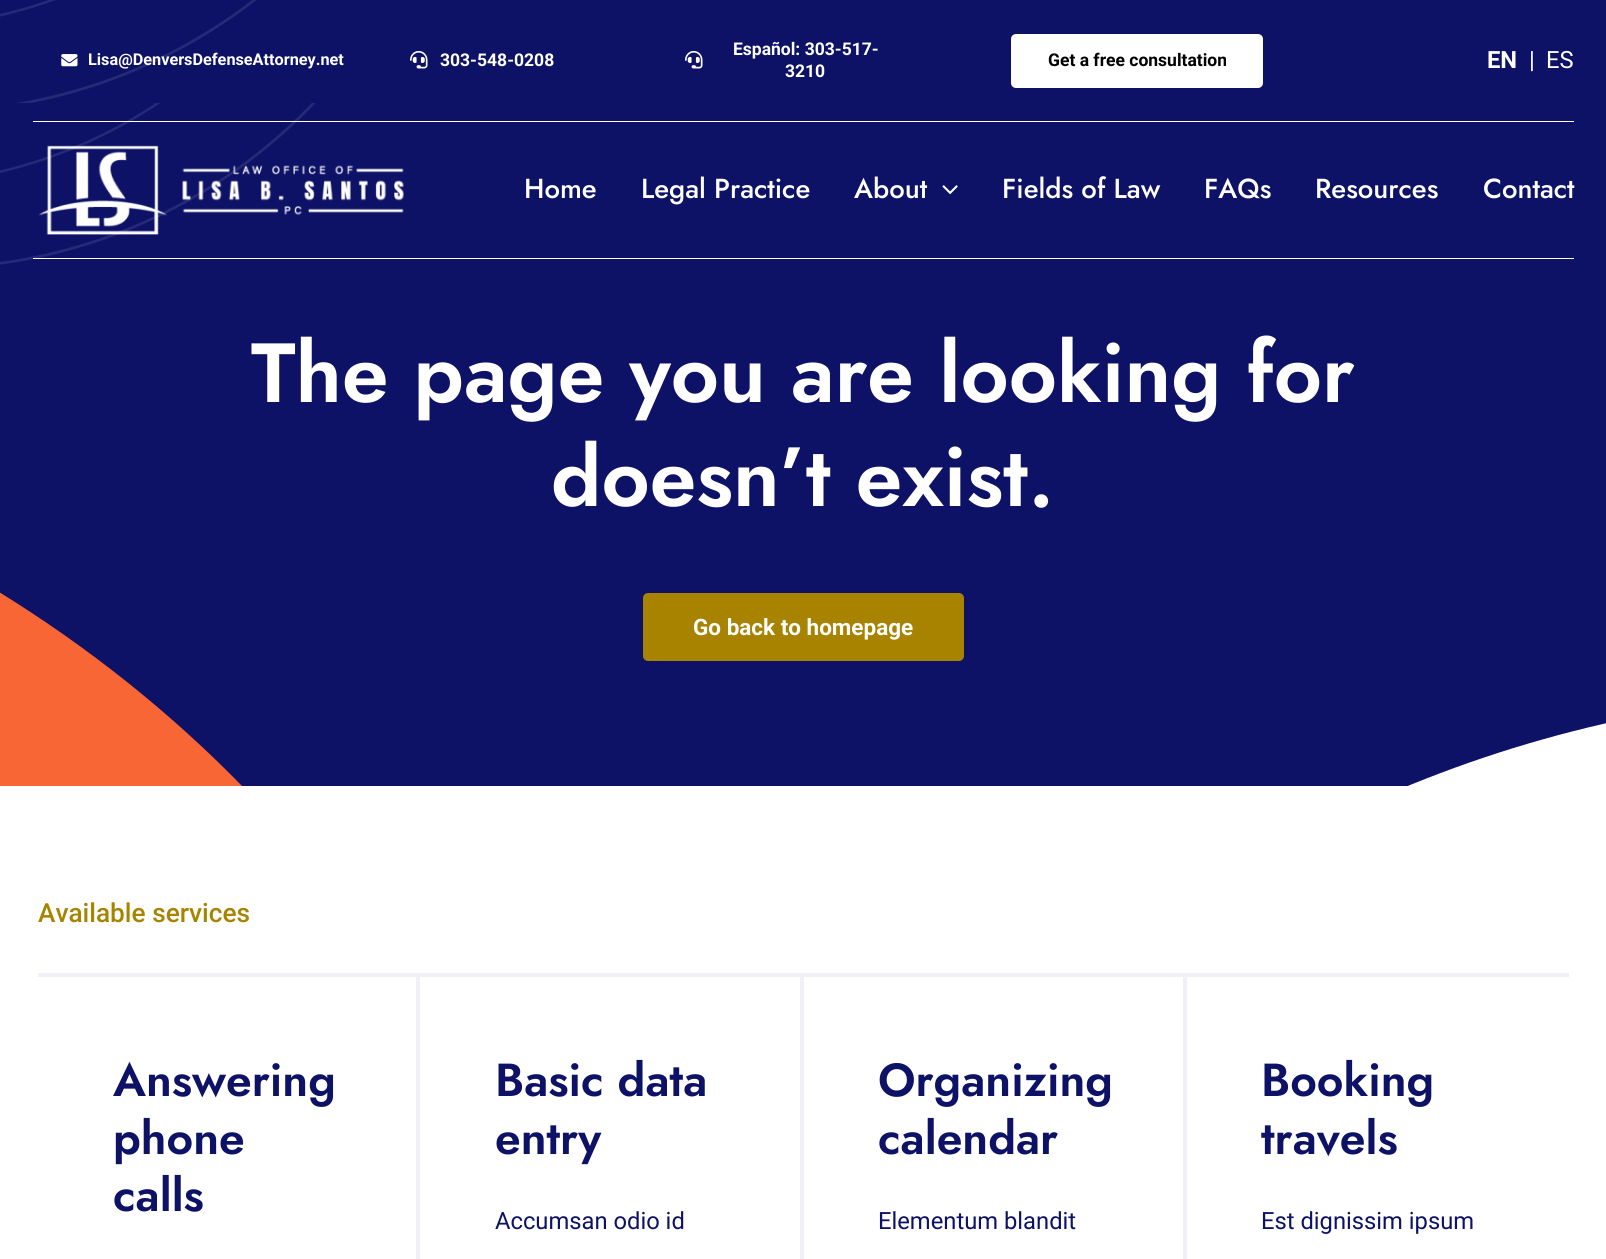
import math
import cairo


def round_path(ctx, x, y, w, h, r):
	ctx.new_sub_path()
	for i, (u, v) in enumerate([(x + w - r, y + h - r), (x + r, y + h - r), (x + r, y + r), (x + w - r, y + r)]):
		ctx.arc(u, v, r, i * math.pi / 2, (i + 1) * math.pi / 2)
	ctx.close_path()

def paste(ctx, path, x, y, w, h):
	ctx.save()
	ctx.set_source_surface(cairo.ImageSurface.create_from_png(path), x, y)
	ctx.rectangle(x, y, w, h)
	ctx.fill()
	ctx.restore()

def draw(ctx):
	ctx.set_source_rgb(1, 1, 1)
	ctx.paint()
	ctx.set_source_rgb(0.051, 0.071, 0.404)
	ctx.rectangle(0, 0, 1606, 103)
	ctx.fill()
	ctx.new_path()
	ctx.move_to(-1, 15.5)
	ctx.curve_to(62.5, 1, 121, -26, 172, -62.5)
	ctx.set_source_rgb(0.145, 0.165, 0.463)
	ctx.set_line_width(2.5)
	ctx.stroke()
	ctx.new_path()
	ctx.move_to(-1.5, 107)
	ctx.curve_to(126.5, 90, 240.5, 27.5, 323.5, -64)
	ctx.set_line_width(2.7)
	ctx.stroke()
	paste(ctx, 'media/1.png', 61, 54, 17, 13)
	ctx.select_font_face('Roboto', cairo.FONT_SLANT_NORMAL, cairo.FONT_WEIGHT_BOLD)
	ctx.set_font_size(16.25)
	ctx.set_source_rgb(1, 1, 1)
	ctx.move_to(88, 65)
	ctx.show_text('Lisa@DenversDefenseAttorney.net')
	paste(ctx, 'media/2.png', 410, 50, 18, 19)
	ctx.set_font_size(17.5)
	ctx.move_to(440, 66)
	ctx.show_text('303-548-0208')
	paste(ctx, 'media/2.png', 685, 50, 18, 19)
	ctx.move_to(733, 55)
	ctx.show_text('Español: 303-517-')
	ctx.move_to(785, 77)
	ctx.show_text('3210')
	round_path(ctx, 1011, 34, 252, 54, 5)
	ctx.fill()
	ctx.set_source_rgb(0, 0, 0)
	ctx.move_to(1048, 66)
	ctx.show_text('Get a free consultation')
	ctx.set_font_size(23.75)
	ctx.set_source_rgb(1, 1, 1)
	ctx.move_to(1487, 68)
	ctx.show_text('EN')
	ctx.select_font_face('Roboto')
	ctx.move_to(1529, 68)
	ctx.show_text('|')
	ctx.move_to(1546, 68)
	ctx.show_text('ES')
	ctx.set_source_rgb(0.051, 0.071, 0.404)
	ctx.rectangle(0, 103, 1606, 180)
	ctx.fill()
	ctx.save()
	ctx.rectangle(0, 103, 1606, 180)
	ctx.clip()
	ctx.new_path()
	ctx.move_to(-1, 172)
	ctx.curve_to(62.5, 157, 121, 130, 172, 93.5)
	ctx.set_source_rgb(0.145, 0.165, 0.463)
	ctx.set_line_width(2.5)
	ctx.stroke()
	ctx.new_path()
	ctx.move_to(-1.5, 263.5)
	ctx.curve_to(126.5, 246.5, 240.5, 184, 323.5, 92.5)
	ctx.set_line_width(2.7)
	ctx.stroke()
	ctx.restore()
	ctx.set_source_rgb(1, 1, 1)
	ctx.rectangle(33, 121, 1541, 1)
	ctx.fill()
	paste(ctx, 'media/3.png', 39, 145, 365, 90)
	ctx.select_font_face('Jost Medium')
	ctx.set_font_size(27.5)
	for x, y, s in [
		(524, 198, 'Home'),
		(641, 198, 'Legal Practice'),
		(854, 198, 'About'),
	]:
		ctx.move_to(x, y)
		ctx.show_text(s)
	paste(ctx, 'media/4.png', 942, 185, 16, 10)
	for x, y, s in [
		(1002, 198, 'Fields of Law'),
		(1204, 198, 'FAQs'),
		(1315, 198, 'Resources'),
		(1483, 198, 'Contact'),
	]:
		ctx.move_to(x, y)
		ctx.show_text(s)
	ctx.rectangle(33, 258, 1541, 1)
	ctx.fill()
	ctx.set_source_rgb(0.051, 0.071, 0.404)
	ctx.rectangle(0, 283, 1606, 503)
	ctx.fill()
	ctx.save()
	ctx.rectangle(0, 283, 1606, 503)
	ctx.clip()
	ctx.set_source_rgb(0.973, 0.4, 0.208)
	ctx.new_path()
	ctx.move_to(-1, 787)
	ctx.line_to(-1, 592)
	ctx.curve_to(88, 647, 170, 712, 243, 787)
	ctx.close_path()
	ctx.fill()
	ctx.set_source_rgb(1, 1, 1)
	ctx.new_path()
	ctx.move_to(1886, 692)
	ctx.curve_to(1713, 692, 1548, 727, 1398, 790)
	ctx.line_to(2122, 790)
	ctx.line_to(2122, 714)
	ctx.curve_to(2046, 699, 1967, 692, 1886, 692)
	ctx.close_path()
	ctx.fill()
	ctx.restore()
	ctx.select_font_face('Jost SemiBold')
	ctx.set_font_size(83.75)
	ctx.set_source_rgb(1, 1, 1)
	ctx.move_to(251, 402)
	ctx.show_text('The page you are looking for')
	ctx.move_to(551, 506)
	ctx.show_text('doesn’t exist.')
	ctx.set_source_rgb(0.659, 0.514, 0)
	round_path(ctx, 643, 593, 321, 68, 5)
	ctx.fill()
	ctx.select_font_face('Roboto', cairo.FONT_SLANT_NORMAL, cairo.FONT_WEIGHT_BOLD)
	ctx.set_font_size(22.5)
	ctx.set_source_rgb(1, 1, 1)
	ctx.move_to(693, 635)
	ctx.show_text('Go back to homepage')
	ctx.select_font_face('Roboto Medium')
	ctx.set_font_size(26.25)
	ctx.set_source_rgb(0.659, 0.514, 0)
	ctx.move_to(38, 922)
	ctx.show_text('Available services')
	ctx.set_source_rgb(0.941, 0.945, 0.961)
	ctx.rectangle(38, 973, 1148, 4)
	ctx.fill()
	ctx.rectangle(416, 973, 4, 286)
	ctx.fill()
	ctx.select_font_face('Jost SemiBold')
	ctx.set_font_size(46.25)
	ctx.set_source_rgb(0.051, 0.071, 0.404)
	for x, y, s in [
		(113, 1096, 'Answering'),
		(113, 1154, 'phone'),
		(113, 1211, 'calls'),
	]:
		ctx.move_to(x, y)
		ctx.show_text(s)
	ctx.set_source_rgb(0.941, 0.945, 0.961)
	ctx.rectangle(800, 973, 4, 286)
	ctx.fill()
	ctx.set_source_rgb(0.051, 0.071, 0.404)
	ctx.move_to(495, 1096)
	ctx.show_text('Basic data')
	ctx.move_to(495, 1154)
	ctx.show_text('entry')
	ctx.select_font_face('Roboto')
	ctx.set_font_size(23.75)
	ctx.move_to(495, 1229)
	ctx.show_text('Accumsan odio id')
	ctx.set_source_rgb(0.941, 0.945, 0.961)
	ctx.rectangle(1183, 973, 4, 286)
	ctx.fill()
	ctx.select_font_face('Jost SemiBold')
	ctx.set_font_size(46.25)
	ctx.set_source_rgb(0.051, 0.071, 0.404)
	ctx.move_to(878, 1096)
	ctx.show_text('Organizing')
	ctx.move_to(878, 1154)
	ctx.show_text('calendar')
	ctx.select_font_face('Roboto')
	ctx.set_font_size(23.75)
	ctx.move_to(878, 1229)
	ctx.show_text('Elementum blandit')
	ctx.set_source_rgb(0.941, 0.945, 0.961)
	ctx.rectangle(1186, 973, 383, 4)
	ctx.fill()
	ctx.select_font_face('Jost SemiBold')
	ctx.set_font_size(46.25)
	ctx.set_source_rgb(0.051, 0.071, 0.404)
	ctx.move_to(1261, 1096)
	ctx.show_text('Booking')
	ctx.move_to(1261, 1154)
	ctx.show_text('travels')
	ctx.select_font_face('Roboto')
	ctx.set_font_size(23.75)
	ctx.move_to(1261, 1229)
	ctx.show_text('Est dignissim ipsum')


surface = cairo.ImageSurface(cairo.FORMAT_RGB24, 1606, 1259)
ctx = cairo.Context(surface)
options = cairo.FontOptions()
options.set_hint_metrics(cairo.HINT_METRICS_OFF)
options.set_hint_style(cairo.HINT_STYLE_NONE)
ctx.set_font_options(options)
ctx.set_miter_limit(4)
draw(ctx)
surface.write_to_png('image.png')
